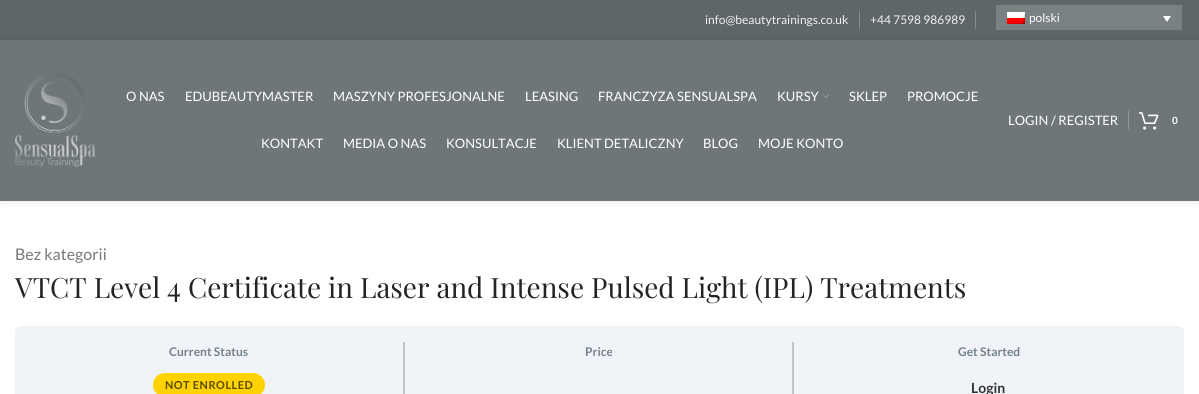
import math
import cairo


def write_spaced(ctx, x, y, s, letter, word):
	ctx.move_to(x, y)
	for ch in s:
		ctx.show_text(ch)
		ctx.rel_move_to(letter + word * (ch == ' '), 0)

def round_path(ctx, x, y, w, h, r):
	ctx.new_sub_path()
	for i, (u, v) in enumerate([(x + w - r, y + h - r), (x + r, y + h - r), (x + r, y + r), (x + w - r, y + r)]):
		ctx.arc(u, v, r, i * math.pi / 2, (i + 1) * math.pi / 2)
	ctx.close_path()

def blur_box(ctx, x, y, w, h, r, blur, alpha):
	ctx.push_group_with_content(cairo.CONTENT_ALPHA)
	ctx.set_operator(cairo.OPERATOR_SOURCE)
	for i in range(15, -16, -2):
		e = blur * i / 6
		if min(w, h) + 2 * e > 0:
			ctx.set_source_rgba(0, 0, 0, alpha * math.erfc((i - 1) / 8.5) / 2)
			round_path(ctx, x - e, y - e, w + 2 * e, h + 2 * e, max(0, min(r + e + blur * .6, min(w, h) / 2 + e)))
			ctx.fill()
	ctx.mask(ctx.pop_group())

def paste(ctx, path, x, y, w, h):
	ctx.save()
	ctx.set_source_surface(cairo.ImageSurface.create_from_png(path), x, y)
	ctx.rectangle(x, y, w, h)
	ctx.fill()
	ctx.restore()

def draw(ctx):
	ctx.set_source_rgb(1, 1, 1)
	ctx.paint()
	ctx.set_source_rgb(0.373, 0.4, 0.412)
	ctx.rectangle(0, 0, 1199, 40)
	ctx.fill()
	ctx.select_font_face('Lato')
	ctx.set_font_size(12)
	ctx.set_source_rgb(0.937, 0.941, 0.941)
	ctx.move_to(705, 24)
	ctx.show_text('info@beautytrainings.co.uk')
	ctx.set_source_rgb(0, 0, 0)
	blur_box(ctx, 0, 41, 1199, 161, 0, 4, 0.1)
	ctx.set_source_rgb(0.529, 0.549, 0.557)
	ctx.rectangle(859, 11, 1, 18)
	ctx.fill()
	ctx.set_source_rgb(0.937, 0.941, 0.941)
	ctx.move_to(870, 24)
	ctx.show_text('+44 7598 986989')
	ctx.set_source_rgb(0.529, 0.549, 0.557)
	ctx.rectangle(975, 11, 1, 18)
	ctx.fill()
	ctx.set_source_rgb(0.475, 0.506, 0.514)
	ctx.rectangle(996, 5, 186, 25)
	ctx.fill()
	paste(ctx, 'media/1.png', 1007, 12, 18, 12)
	ctx.set_source_rgb(1, 1, 1)
	ctx.move_to(1029, 22)
	ctx.show_text('polski')
	ctx.new_path()
	ctx.move_to(1163, 16)
	ctx.line_to(1171, 16)
	ctx.line_to(1167, 22)
	ctx.close_path()
	ctx.fill()
	ctx.set_source_rgb(0.431, 0.463, 0.475)
	ctx.rectangle(0, 40, 1199, 161)
	ctx.fill()
	paste(ctx, 'media/2.png', 15, 73, 81, 94)
	ctx.set_font_size(13)
	ctx.set_source_rgb(1, 1, 1)
	for x, y, s in [
		(126, 101, 'O NAS'),
		(185, 101, 'EDUBEAUTYMASTER'),
		(333, 101, 'MASZYNY PROFESJONALNE'),
		(525, 101, 'LEASING'),
		(598, 101, 'FRANCZYZA SENSUALSPA'),
		(777, 101, 'KURSY'),
	]:
		ctx.move_to(x, y)
		ctx.show_text(s)
	paste(ctx, 'media/3.png', 823, 94, 6, 4)
	for x, y, s in [
		(849, 101, 'SKLEP'),
		(907, 101, 'PROMOCJE'),
		(261, 148, 'KONTAKT'),
		(343, 148, 'MEDIA O NAS'),
		(446, 148, 'KONSULTACJE'),
		(557, 148, 'KLIENT DETALICZNY'),
		(703, 148, 'BLOG'),
		(758, 148, 'MOJE KONTO'),
		(1008, 125, 'LOGIN / REGISTER'),
	]:
		ctx.move_to(x, y)
		ctx.show_text(s)
	ctx.set_source_rgb(0.573, 0.596, 0.608)
	ctx.rectangle(1128, 111, 1, 18)
	ctx.fill()
	paste(ctx, 'media/4.png', 1139, 112, 20, 18)
	ctx.select_font_face('Lato', cairo.FONT_SLANT_NORMAL, cairo.FONT_WEIGHT_BOLD)
	ctx.set_font_size(10)
	ctx.set_source_rgb(1, 1, 1)
	ctx.move_to(1172, 124)
	ctx.show_text('0')
	ctx.select_font_face('Lato')
	ctx.set_font_size(16)
	ctx.set_source_rgb(0.467, 0.467, 0.467)
	ctx.move_to(15, 260)
	ctx.show_text('Bez kategorii')
	ctx.select_font_face('Playfair Display')
	ctx.set_font_size(28)
	ctx.set_source_rgb(0.141, 0.141, 0.141)
	ctx.move_to(15, 298)
	ctx.show_text('VTCT Level 4 Certificate in Laser and Intense Pulsed Light (IPL) Treatments')
	ctx.set_source_rgb(0.941, 0.953, 0.965)
	round_path(ctx, 15, 326, 1169, 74, 6)
	ctx.fill()
	ctx.set_source_rgb(0.745, 0.773, 0.796)
	ctx.rectangle(403, 342, 2, 52)
	ctx.fill()
	ctx.select_font_face('Lato', cairo.FONT_SLANT_NORMAL, cairo.FONT_WEIGHT_BOLD)
	ctx.set_font_size(12)
	ctx.set_source_rgb(0.447, 0.506, 0.533)
	ctx.move_to(169, 356)
	ctx.show_text('Current Status')
	ctx.set_source_rgb(1, 0.824, 0)
	round_path(ctx, 153, 373, 112, 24, 12)
	ctx.fill()
	ctx.set_font_size(11)
	ctx.set_source_rgb(0.349, 0.29, 0)
	write_spaced(ctx, 165, 389, 'NOT ENROLLED', 0.5, 0)
	ctx.set_source_rgb(0.745, 0.773, 0.796)
	ctx.rectangle(792, 342, 2, 52)
	ctx.fill()
	ctx.set_font_size(12)
	ctx.set_source_rgb(0.447, 0.506, 0.533)
	ctx.move_to(585, 356)
	ctx.show_text('Price')
	ctx.move_to(958, 356)
	ctx.show_text('Get Started')
	ctx.set_font_size(14)
	ctx.set_source_rgb(0.2, 0.2, 0.2)
	ctx.move_to(971, 393)
	ctx.show_text('Login')
	ctx.set_source_rgb(0.941, 0.953, 0.965)
	ctx.new_path()
	ctx.move_to(166.5, 366.5)
	ctx.line_to(170, 370)
	ctx.line_to(166.5, 373.5)
	ctx.line_to(163, 370)
	ctx.close_path()
	ctx.fill()


surface = cairo.ImageSurface(cairo.FORMAT_RGB24, 1199, 394)
ctx = cairo.Context(surface)
options = cairo.FontOptions()
options.set_hint_metrics(cairo.HINT_METRICS_OFF)
options.set_hint_style(cairo.HINT_STYLE_NONE)
ctx.set_font_options(options)
ctx.set_miter_limit(4)
draw(ctx)
surface.write_to_png('image.png')
